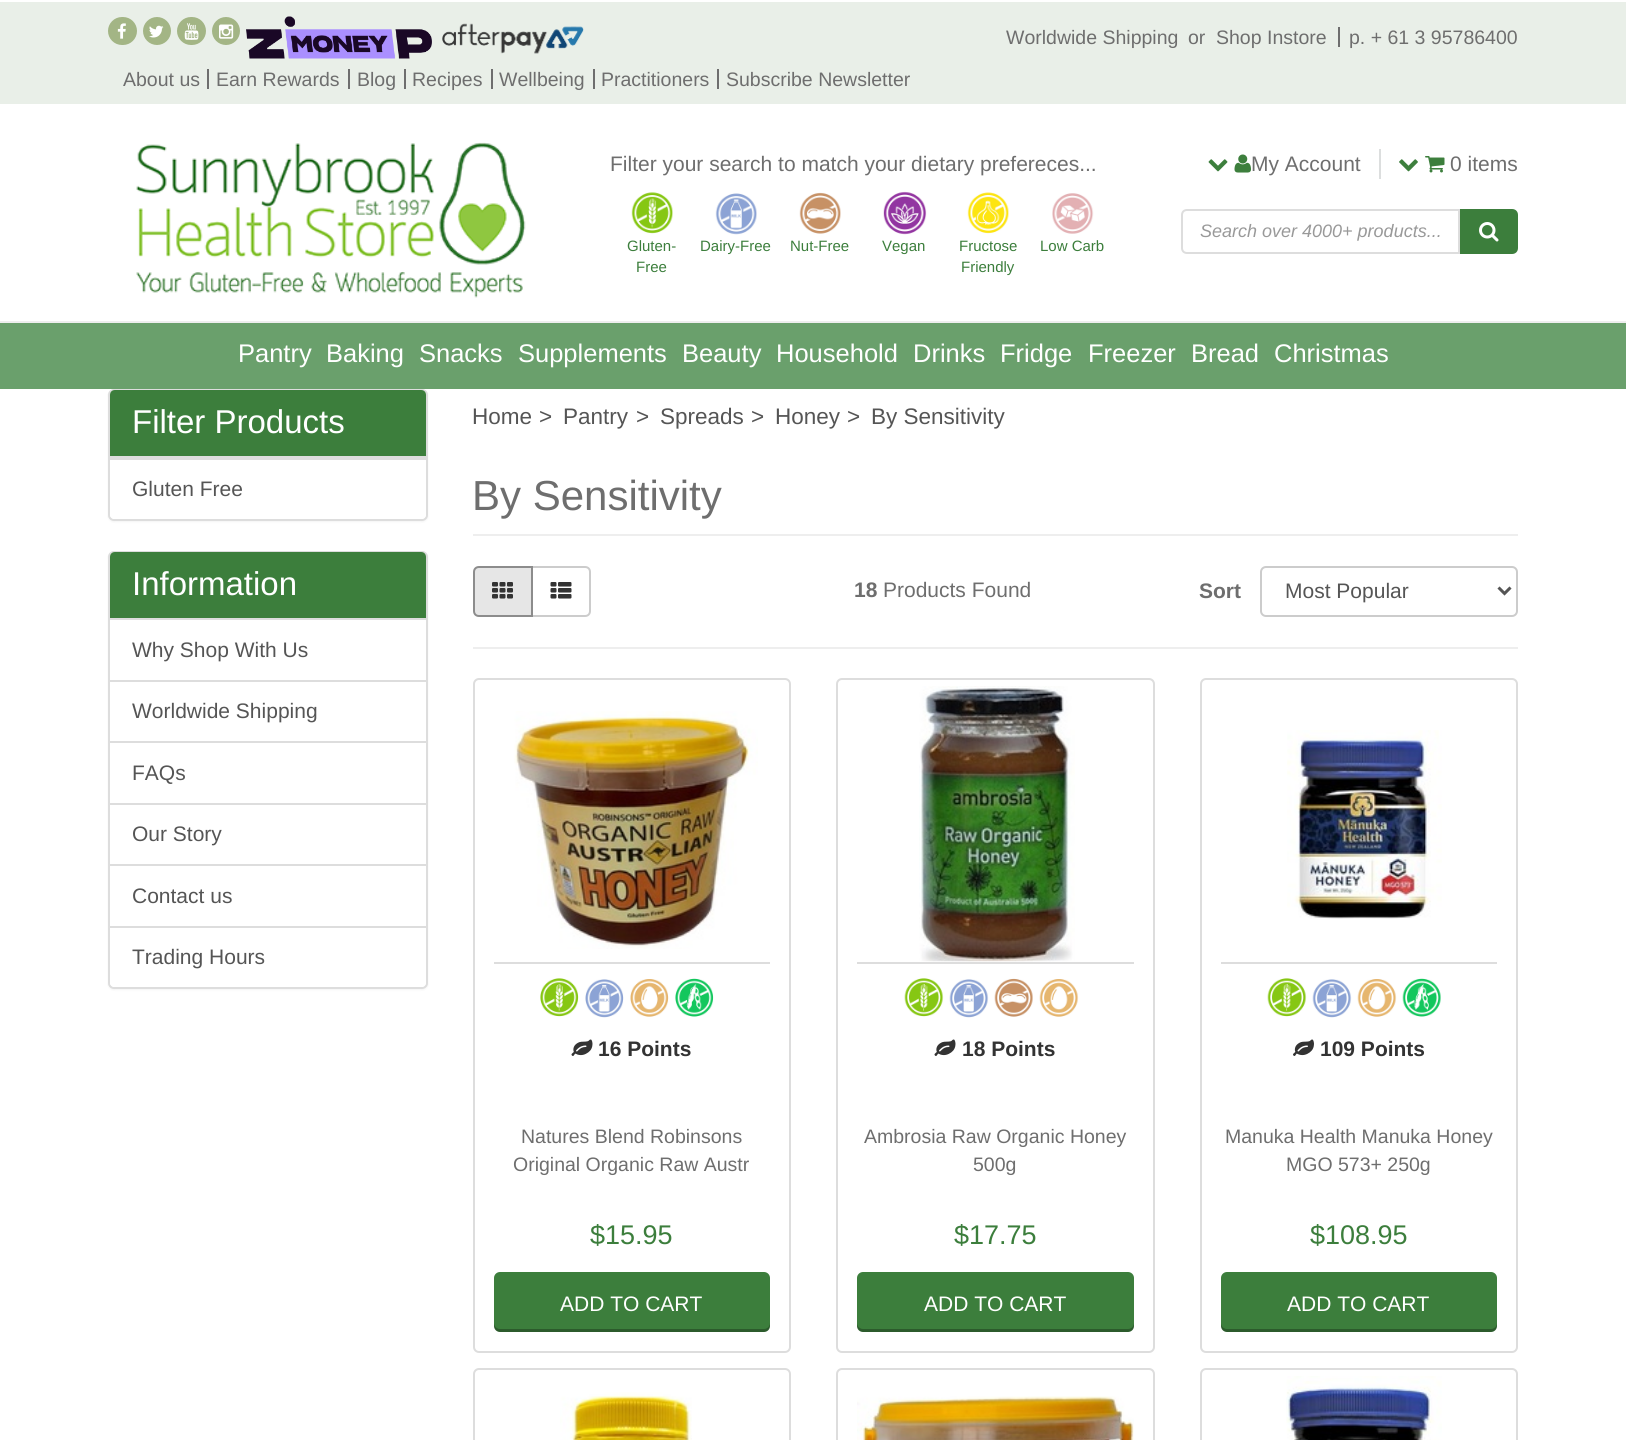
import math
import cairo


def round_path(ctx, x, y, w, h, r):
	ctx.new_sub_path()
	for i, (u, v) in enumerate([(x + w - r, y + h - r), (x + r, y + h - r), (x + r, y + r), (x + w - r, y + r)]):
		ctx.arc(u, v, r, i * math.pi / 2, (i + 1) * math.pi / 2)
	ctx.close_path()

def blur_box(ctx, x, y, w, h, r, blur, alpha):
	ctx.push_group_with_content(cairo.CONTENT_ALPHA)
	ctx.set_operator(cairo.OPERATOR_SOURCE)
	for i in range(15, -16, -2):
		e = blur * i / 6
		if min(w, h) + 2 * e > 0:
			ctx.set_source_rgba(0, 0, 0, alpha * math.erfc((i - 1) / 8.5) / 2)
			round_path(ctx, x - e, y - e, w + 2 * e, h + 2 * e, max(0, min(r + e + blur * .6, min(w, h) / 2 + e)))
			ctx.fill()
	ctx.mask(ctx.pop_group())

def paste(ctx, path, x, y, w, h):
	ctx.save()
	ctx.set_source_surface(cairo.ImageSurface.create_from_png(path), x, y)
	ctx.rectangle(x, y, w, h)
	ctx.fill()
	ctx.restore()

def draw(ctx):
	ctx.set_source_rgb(1, 1, 1)
	ctx.paint()
	ctx.set_source_rgb(0.914, 0.937, 0.91)
	ctx.rectangle(0, 2, 1626, 102)
	ctx.fill()
	ctx.select_font_face('Liberation Sans')
	ctx.set_font_size(19.5)
	ctx.set_source_rgb(0.431, 0.431, 0.431)
	for x, y, s in [
		(1006, 44, 'Worldwide Shipping'),
		(1188, 44, 'or'),
		(1216, 44, 'Shop Instore'),
	]:
		ctx.move_to(x, y)
		ctx.show_text(s)
	ctx.rectangle(1338, 27, 2, 20)
	ctx.fill()
	ctx.move_to(1349, 44)
	ctx.show_text('p. + 61 3 95786400')
	ctx.set_source_rgb(0.639, 0.71, 0.522)
	round_path(ctx, 108, 17, 29, 28, 14)
	ctx.fill()
	paste(ctx, 'media/1.png', 117, 23, 9, 16)
	ctx.arc(157, 31, 14, 0, 2 * math.pi)
	ctx.fill()
	paste(ctx, 'media/2.png', 149, 25, 15, 13)
	round_path(ctx, 177, 17, 29, 28, 14)
	ctx.fill()
	paste(ctx, 'media/3.png', 184, 23, 15, 17)
	ctx.arc(226, 31, 14, 0, 2 * math.pi)
	ctx.fill()
	paste(ctx, 'media/4.png', 219, 24, 15, 15)
	paste(ctx, 'media/5.png', 246, 16, 186, 43)
	paste(ctx, 'media/6.png', 442, 23, 142, 31)
	ctx.set_source_rgb(0.431, 0.431, 0.431)
	ctx.move_to(123, 86)
	ctx.show_text('About us')
	ctx.rectangle(207, 69, 2, 20)
	ctx.fill()
	ctx.move_to(216, 86)
	ctx.show_text('Earn Rewards')
	ctx.rectangle(348, 69, 2, 20)
	ctx.fill()
	ctx.move_to(357, 86)
	ctx.show_text('Blog')
	ctx.rectangle(404, 69, 2, 20)
	ctx.fill()
	ctx.move_to(412, 86)
	ctx.show_text('Recipes')
	ctx.rectangle(491, 69, 2, 20)
	ctx.fill()
	ctx.move_to(499, 86)
	ctx.show_text('Wellbeing')
	ctx.rectangle(593, 69, 2, 20)
	ctx.fill()
	ctx.move_to(601, 86)
	ctx.show_text('Practitioners')
	ctx.rectangle(717, 69, 2, 20)
	ctx.fill()
	ctx.move_to(726, 86)
	ctx.show_text('Subscribe Newsletter')
	ctx.set_source_rgb(0.933, 0.933, 0.933)
	ctx.rectangle(0, 321, 1626, 2)
	ctx.fill()
	paste(ctx, 'media/7.png', 136, 142, 390, 156)
	ctx.set_font_size(21)
	ctx.set_source_rgb(0.431, 0.431, 0.431)
	ctx.move_to(610, 171)
	ctx.show_text('Filter your search to match your dietary prefereces...')
	paste(ctx, 'media/8.png', 631, 192, 42, 42)
	ctx.set_font_size(15)
	ctx.set_source_rgb(0.235, 0.494, 0.235)
	ctx.move_to(627, 251)
	ctx.show_text('Gluten-')
	ctx.move_to(636, 272)
	ctx.show_text('Free')
	paste(ctx, 'media/9.png', 715, 193, 42, 42)
	ctx.move_to(700, 251)
	ctx.show_text('Dairy-Free')
	paste(ctx, 'media/10.png', 799, 192, 42, 42)
	ctx.move_to(790, 251)
	ctx.show_text('Nut-Free')
	paste(ctx, 'media/11.png', 883, 191, 44, 44)
	ctx.move_to(882, 251)
	ctx.show_text('Vegan')
	paste(ctx, 'media/12.png', 967, 192, 42, 42)
	ctx.move_to(959, 251)
	ctx.show_text('Fructose')
	ctx.move_to(961, 272)
	ctx.show_text('Friendly')
	paste(ctx, 'media/13.png', 1052, 193, 42, 41)
	ctx.move_to(1040, 251)
	ctx.show_text('Low Carb')
	ctx.set_source_rgb(0.863, 0.871, 0.871)
	ctx.rectangle(1379, 149, 2, 30)
	ctx.fill()
	paste(ctx, 'media/14.png', 1208, 159, 20, 13)
	paste(ctx, 'media/15.png', 1234, 154, 17, 19)
	ctx.set_font_size(21)
	ctx.set_source_rgb(0.431, 0.431, 0.431)
	ctx.move_to(1251, 171)
	ctx.show_text('My Account')
	paste(ctx, 'media/16.png', 1399, 159, 19, 13)
	paste(ctx, 'media/17.png', 1425, 156, 20, 17)
	ctx.move_to(1450, 171)
	ctx.show_text('0 items')
	ctx.new_path()
	ctx.move_to(1187, 210)
	ctx.line_to(1459, 210)
	ctx.line_to(1459, 253)
	ctx.line_to(1187, 253)
	ctx.curve_to(1184, 253, 1182, 251, 1182, 248)
	ctx.line_to(1182, 215)
	ctx.curve_to(1182, 212, 1184, 210, 1187, 210)
	ctx.close_path()
	ctx.set_source_rgb(0.867, 0.867, 0.867)
	ctx.stroke()
	ctx.select_font_face('Liberation Sans', cairo.FONT_SLANT_ITALIC)
	ctx.set_font_size(18)
	ctx.set_source_rgb(0.6, 0.6, 0.6)
	ctx.move_to(1200, 237)
	ctx.show_text('Search over 4000+ products...')
	ctx.set_source_rgb(0.235, 0.494, 0.235)
	ctx.new_path()
	ctx.move_to(1461, 210)
	ctx.line_to(1512, 210)
	ctx.curve_to(1515, 210, 1517, 212, 1517, 215)
	ctx.line_to(1517, 248)
	ctx.curve_to(1517, 251, 1515, 253, 1512, 253)
	ctx.line_to(1461, 253)
	ctx.close_path()
	ctx.fill_preserve()
	ctx.stroke()
	paste(ctx, 'media/18.png', 1479, 222, 20, 20)
	ctx.set_source_rgb(0.416, 0.627, 0.424)
	ctx.rectangle(0, 323, 1626, 66)
	ctx.fill()
	ctx.select_font_face('Liberation Sans')
	ctx.set_font_size(25.5)
	ctx.set_source_rgb(1, 1, 1)
	for x, y, s in [
		(238, 362, 'Pantry'),
		(326, 362, 'Baking'),
		(419, 362, 'Snacks'),
		(518, 362, 'Supplements'),
		(682, 362, 'Beauty'),
		(776, 362, 'Household'),
		(913, 362, 'Drinks'),
		(1000, 362, 'Fridge'),
		(1088, 362, 'Freezer'),
		(1191, 362, 'Bread'),
		(1274, 362, 'Christmas'),
	]:
		ctx.move_to(x, y)
		ctx.show_text(s)
	ctx.set_source_rgb(0, 0, 0)
	blur_box(ctx, 108, 390, 320, 132, 6, 1, 0.05)
	ctx.set_source_rgb(1, 1, 1)
	round_path(ctx, 109, 390, 318, 130, 5)
	ctx.fill_preserve()
	ctx.set_source_rgb(0.867, 0.867, 0.867)
	ctx.stroke()
	ctx.set_source_rgb(0.235, 0.494, 0.235)
	ctx.new_path()
	ctx.move_to(115, 390)
	ctx.line_to(421, 390)
	ctx.curve_to(424, 390, 426, 392, 426, 395)
	ctx.line_to(426, 458)
	ctx.line_to(110, 458)
	ctx.line_to(110, 395)
	ctx.curve_to(110, 392, 112, 390, 115, 390)
	ctx.close_path()
	ctx.fill()
	ctx.set_source_rgb(0.867, 0.867, 0.867)
	ctx.rectangle(110, 456, 316, 2)
	ctx.fill()
	ctx.set_font_size(33)
	ctx.set_source_rgb(1, 1, 1)
	ctx.move_to(132, 433)
	ctx.show_text('Filter Products')
	ctx.new_path()
	ctx.move_to(110, 458)
	ctx.line_to(426, 458)
	ctx.line_to(426, 514)
	ctx.curve_to(426, 517, 424, 519, 421, 519)
	ctx.line_to(115, 519)
	ctx.curve_to(112, 519, 110, 517, 110, 514)
	ctx.close_path()
	ctx.fill()
	ctx.set_source_rgb(0.867, 0.867, 0.867)
	ctx.rectangle(110, 458, 316, 2)
	ctx.fill()
	ctx.set_font_size(21)
	ctx.set_source_rgb(0.333, 0.333, 0.333)
	ctx.move_to(132, 496)
	ctx.show_text('Gluten Free')
	ctx.set_source_rgb(0, 0, 0)
	blur_box(ctx, 108, 552, 320, 438, 6, 1, 0.05)
	ctx.set_source_rgb(1, 1, 1)
	round_path(ctx, 109, 552, 318, 436, 5)
	ctx.fill_preserve()
	ctx.set_source_rgb(0.867, 0.867, 0.867)
	ctx.stroke()
	ctx.set_source_rgb(0.235, 0.494, 0.235)
	ctx.new_path()
	ctx.move_to(115, 552)
	ctx.line_to(421, 552)
	ctx.curve_to(424, 552, 426, 554, 426, 557)
	ctx.line_to(426, 620)
	ctx.line_to(110, 620)
	ctx.line_to(110, 557)
	ctx.curve_to(110, 554, 112, 552, 115, 552)
	ctx.close_path()
	ctx.fill()
	ctx.set_source_rgb(0.867, 0.867, 0.867)
	ctx.rectangle(110, 618, 316, 2)
	ctx.fill()
	ctx.set_font_size(33)
	ctx.set_source_rgb(1, 1, 1)
	ctx.move_to(132, 595)
	ctx.show_text('Information')
	ctx.set_font_size(21)
	ctx.set_source_rgb(0.333, 0.333, 0.333)
	ctx.move_to(132, 657)
	ctx.show_text('Why Shop With Us')
	ctx.set_source_rgb(0.867, 0.867, 0.867)
	ctx.rectangle(110, 680, 316, 2)
	ctx.fill()
	ctx.set_source_rgb(0.333, 0.333, 0.333)
	ctx.move_to(132, 718)
	ctx.show_text('Worldwide Shipping')
	ctx.set_source_rgb(0.867, 0.867, 0.867)
	ctx.rectangle(110, 741, 316, 2)
	ctx.fill()
	ctx.set_source_rgb(0.333, 0.333, 0.333)
	ctx.move_to(132, 780)
	ctx.show_text('FAQs')
	ctx.set_source_rgb(0.867, 0.867, 0.867)
	ctx.rectangle(110, 803, 316, 2)
	ctx.fill()
	ctx.set_source_rgb(0.333, 0.333, 0.333)
	ctx.move_to(132, 841)
	ctx.show_text('Our Story')
	ctx.set_source_rgb(0.867, 0.867, 0.867)
	ctx.rectangle(110, 864, 316, 2)
	ctx.fill()
	ctx.set_source_rgb(0.333, 0.333, 0.333)
	ctx.move_to(132, 903)
	ctx.show_text('Contact us')
	ctx.set_source_rgb(1, 1, 1)
	ctx.new_path()
	ctx.move_to(110, 926)
	ctx.line_to(426, 926)
	ctx.line_to(426, 982)
	ctx.curve_to(426, 985, 424, 987, 421, 987)
	ctx.line_to(115, 987)
	ctx.curve_to(112, 987, 110, 985, 110, 982)
	ctx.close_path()
	ctx.fill()
	ctx.set_source_rgb(0.867, 0.867, 0.867)
	ctx.rectangle(110, 926, 316, 2)
	ctx.fill()
	ctx.set_source_rgb(0.333, 0.333, 0.333)
	ctx.move_to(132, 964)
	ctx.show_text('Trading Hours')
	ctx.set_font_size(22.5)
	for x, y, s in [
		(472, 424, 'Home'),
		(539, 424, '>'),
		(563, 424, 'Pantry'),
		(636, 424, '>'),
		(660, 424, 'Spreads'),
		(751, 424, '>'),
		(775, 424, 'Honey'),
		(847, 424, '>'),
		(871, 424, 'By Sensitivity'),
	]:
		ctx.move_to(x, y)
		ctx.show_text(s)
	ctx.set_source_rgb(0.933, 0.933, 0.933)
	ctx.rectangle(473, 534, 1045, 2)
	ctx.fill()
	ctx.set_font_size(42)
	ctx.set_source_rgb(0.431, 0.431, 0.431)
	ctx.move_to(472, 510)
	ctx.show_text('By Sensitivity')
	ctx.new_path()
	ctx.move_to(532, 567)
	ctx.line_to(585, 567)
	ctx.curve_to(588, 567, 590, 569, 590, 572)
	ctx.line_to(590, 611)
	ctx.curve_to(590, 614, 588, 616, 585, 616)
	ctx.line_to(532, 616)
	ctx.close_path()
	ctx.set_source_rgb(0.8, 0.8, 0.8)
	ctx.stroke()
	ctx.set_source_rgb(0.902, 0.902, 0.902)
	ctx.new_path()
	ctx.move_to(479, 567)
	ctx.line_to(532, 567)
	ctx.line_to(532, 616)
	ctx.line_to(479, 616)
	ctx.curve_to(476, 616, 474, 614, 474, 611)
	ctx.line_to(474, 572)
	ctx.curve_to(474, 569, 476, 567, 479, 567)
	ctx.close_path()
	ctx.fill_preserve()
	ctx.set_source_rgb(0.549, 0.549, 0.549)
	ctx.stroke()
	paste(ctx, 'media/19.png', 492, 582, 21, 17)
	paste(ctx, 'media/20.png', 550, 582, 22, 17)
	ctx.select_font_face('Liberation Sans', cairo.FONT_SLANT_NORMAL, cairo.FONT_WEIGHT_BOLD)
	ctx.set_font_size(21)
	ctx.set_source_rgb(0.431, 0.431, 0.431)
	ctx.move_to(854, 597)
	ctx.show_text('18')
	ctx.select_font_face('Liberation Sans')
	ctx.move_to(883, 597)
	ctx.show_text('Products Found')
	ctx.select_font_face('Liberation Sans', cairo.FONT_SLANT_NORMAL, cairo.FONT_WEIGHT_BOLD)
	ctx.move_to(1199, 598)
	ctx.show_text('Sort')
	round_path(ctx, 1261, 567, 256, 49, 5)
	ctx.set_source_rgb(0.8, 0.8, 0.8)
	ctx.stroke()
	ctx.new_path()
	ctx.move_to(1498.5, 587.5)
	ctx.line_to(1504.5, 593.5)
	ctx.line_to(1510.5, 587.5)
	ctx.set_source_rgb(0.333, 0.333, 0.333)
	ctx.set_line_width(3)
	ctx.stroke()
	ctx.select_font_face('Liberation Sans')
	ctx.move_to(1285, 598)
	ctx.show_text('Most Popular')
	ctx.set_source_rgb(0.933, 0.933, 0.933)
	ctx.rectangle(473, 647, 1045, 2)
	ctx.fill()
	round_path(ctx, 474, 679, 316, 673, 5)
	ctx.set_source_rgb(0.867, 0.867, 0.867)
	ctx.set_line_width(2)
	ctx.stroke()
	paste(ctx, 'media/21.png', 514, 711, 244, 238)
	ctx.rectangle(494, 962, 276, 2)
	ctx.fill()
	paste(ctx, 'media/22.png', 540, 978, 39, 39)
	paste(ctx, 'media/23.png', 585, 979, 39, 39)
	paste(ctx, 'media/24.png', 630, 979, 39, 38)
	paste(ctx, 'media/25.png', 675, 978, 39, 39)
	paste(ctx, 'media/26.png', 571, 1039, 22, 17)
	ctx.select_font_face('Liberation Sans', cairo.FONT_SLANT_NORMAL, cairo.FONT_WEIGHT_BOLD)
	ctx.set_source_rgb(0.2, 0.2, 0.2)
	ctx.move_to(598, 1056)
	ctx.show_text('16 Points')
	ctx.select_font_face('Liberation Sans')
	ctx.set_font_size(19.5)
	ctx.set_source_rgb(0.431, 0.431, 0.431)
	ctx.move_to(521, 1143)
	ctx.show_text('Natures Blend Robinsons')
	ctx.move_to(513, 1171)
	ctx.show_text('Original Organic Raw Austr')
	ctx.set_font_size(27)
	ctx.set_source_rgb(0.235, 0.494, 0.235)
	ctx.move_to(590, 1244)
	ctx.show_text('$15.95')
	ctx.set_source_rgb(0.173, 0.357, 0.173)
	round_path(ctx, 494, 1275, 276, 57, 6)
	ctx.fill()
	ctx.set_source_rgb(0.235, 0.494, 0.235)
	round_path(ctx, 494, 1272, 276, 57, 6)
	ctx.fill()
	ctx.set_font_size(21)
	ctx.set_source_rgb(1, 1, 1)
	ctx.move_to(560, 1311)
	ctx.show_text('ADD TO CART')
	round_path(ctx, 837, 679, 317, 673, 5)
	ctx.set_source_rgb(0.867, 0.867, 0.867)
	ctx.stroke()
	paste(ctx, 'media/27.png', 919, 686, 156, 276)
	ctx.rectangle(857, 962, 277, 2)
	ctx.fill()
	paste(ctx, 'media/28.png', 904, 978, 40, 39)
	paste(ctx, 'media/29.png', 949, 979, 40, 39)
	paste(ctx, 'media/30.png', 994, 978, 39, 39)
	paste(ctx, 'media/31.png', 1039, 979, 40, 38)
	paste(ctx, 'media/26.png', 934, 1039, 22, 17)
	ctx.select_font_face('Liberation Sans', cairo.FONT_SLANT_NORMAL, cairo.FONT_WEIGHT_BOLD)
	ctx.set_source_rgb(0.2, 0.2, 0.2)
	ctx.move_to(962, 1056)
	ctx.show_text('18 Points')
	ctx.select_font_face('Liberation Sans')
	ctx.set_font_size(19.5)
	ctx.set_source_rgb(0.431, 0.431, 0.431)
	ctx.move_to(864, 1143)
	ctx.show_text('Ambrosia Raw Organic Honey')
	ctx.move_to(973, 1171)
	ctx.show_text('500g')
	ctx.set_font_size(27)
	ctx.set_source_rgb(0.235, 0.494, 0.235)
	ctx.move_to(954, 1244)
	ctx.show_text('$17.75')
	ctx.set_source_rgb(0.173, 0.357, 0.173)
	round_path(ctx, 857, 1275, 277, 57, 6)
	ctx.fill()
	ctx.set_source_rgb(0.235, 0.494, 0.235)
	round_path(ctx, 857, 1272, 277, 57, 6)
	ctx.fill()
	ctx.set_font_size(21)
	ctx.set_source_rgb(1, 1, 1)
	ctx.move_to(924, 1311)
	ctx.show_text('ADD TO CART')
	round_path(ctx, 1201, 679, 316, 673, 5)
	ctx.set_source_rgb(0.867, 0.867, 0.867)
	ctx.stroke()
	paste(ctx, 'media/32.png', 1287, 730, 155, 189)
	ctx.rectangle(1221, 962, 276, 2)
	ctx.fill()
	paste(ctx, 'media/33.png', 1267, 978, 40, 39)
	paste(ctx, 'media/29.png', 1312, 979, 40, 39)
	paste(ctx, 'media/31.png', 1357, 979, 40, 38)
	paste(ctx, 'media/34.png', 1402, 978, 39, 39)
	paste(ctx, 'media/35.png', 1293, 1039, 21, 17)
	ctx.select_font_face('Liberation Sans', cairo.FONT_SLANT_NORMAL, cairo.FONT_WEIGHT_BOLD)
	ctx.set_source_rgb(0.2, 0.2, 0.2)
	ctx.move_to(1320, 1056)
	ctx.show_text('109 Points')
	ctx.select_font_face('Liberation Sans')
	ctx.set_font_size(19.5)
	ctx.set_source_rgb(0.431, 0.431, 0.431)
	ctx.move_to(1225, 1143)
	ctx.show_text('Manuka Health Manuka Honey')
	ctx.move_to(1286, 1171)
	ctx.show_text('MGO 573+ 250g')
	ctx.set_font_size(27)
	ctx.set_source_rgb(0.235, 0.494, 0.235)
	ctx.move_to(1310, 1244)
	ctx.show_text('$108.95')
	ctx.set_source_rgb(0.173, 0.357, 0.173)
	round_path(ctx, 1221, 1275, 276, 57, 6)
	ctx.fill()
	ctx.set_source_rgb(0.235, 0.494, 0.235)
	round_path(ctx, 1221, 1272, 276, 57, 6)
	ctx.fill()
	ctx.set_font_size(21)
	ctx.set_source_rgb(1, 1, 1)
	ctx.move_to(1287, 1311)
	ctx.show_text('ADD TO CART')
	round_path(ctx, 474, 1369, 316, 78, 5)
	ctx.set_source_rgb(0.867, 0.867, 0.867)
	ctx.stroke()
	paste(ctx, 'media/36.png', 560, 1392, 132, 48)
	round_path(ctx, 837, 1369, 317, 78, 5)
	ctx.stroke()
	paste(ctx, 'media/37.png', 857, 1396, 277, 44)
	round_path(ctx, 1201, 1369, 316, 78, 5)
	ctx.stroke()
	paste(ctx, 'media/38.png', 1286, 1376, 156, 64)


surface = cairo.ImageSurface(cairo.FORMAT_RGB24, 1626, 1440)
ctx = cairo.Context(surface)
options = cairo.FontOptions()
options.set_hint_metrics(cairo.HINT_METRICS_OFF)
options.set_hint_style(cairo.HINT_STYLE_NONE)
ctx.set_font_options(options)
ctx.set_miter_limit(4)
draw(ctx)
surface.write_to_png('image.png')
